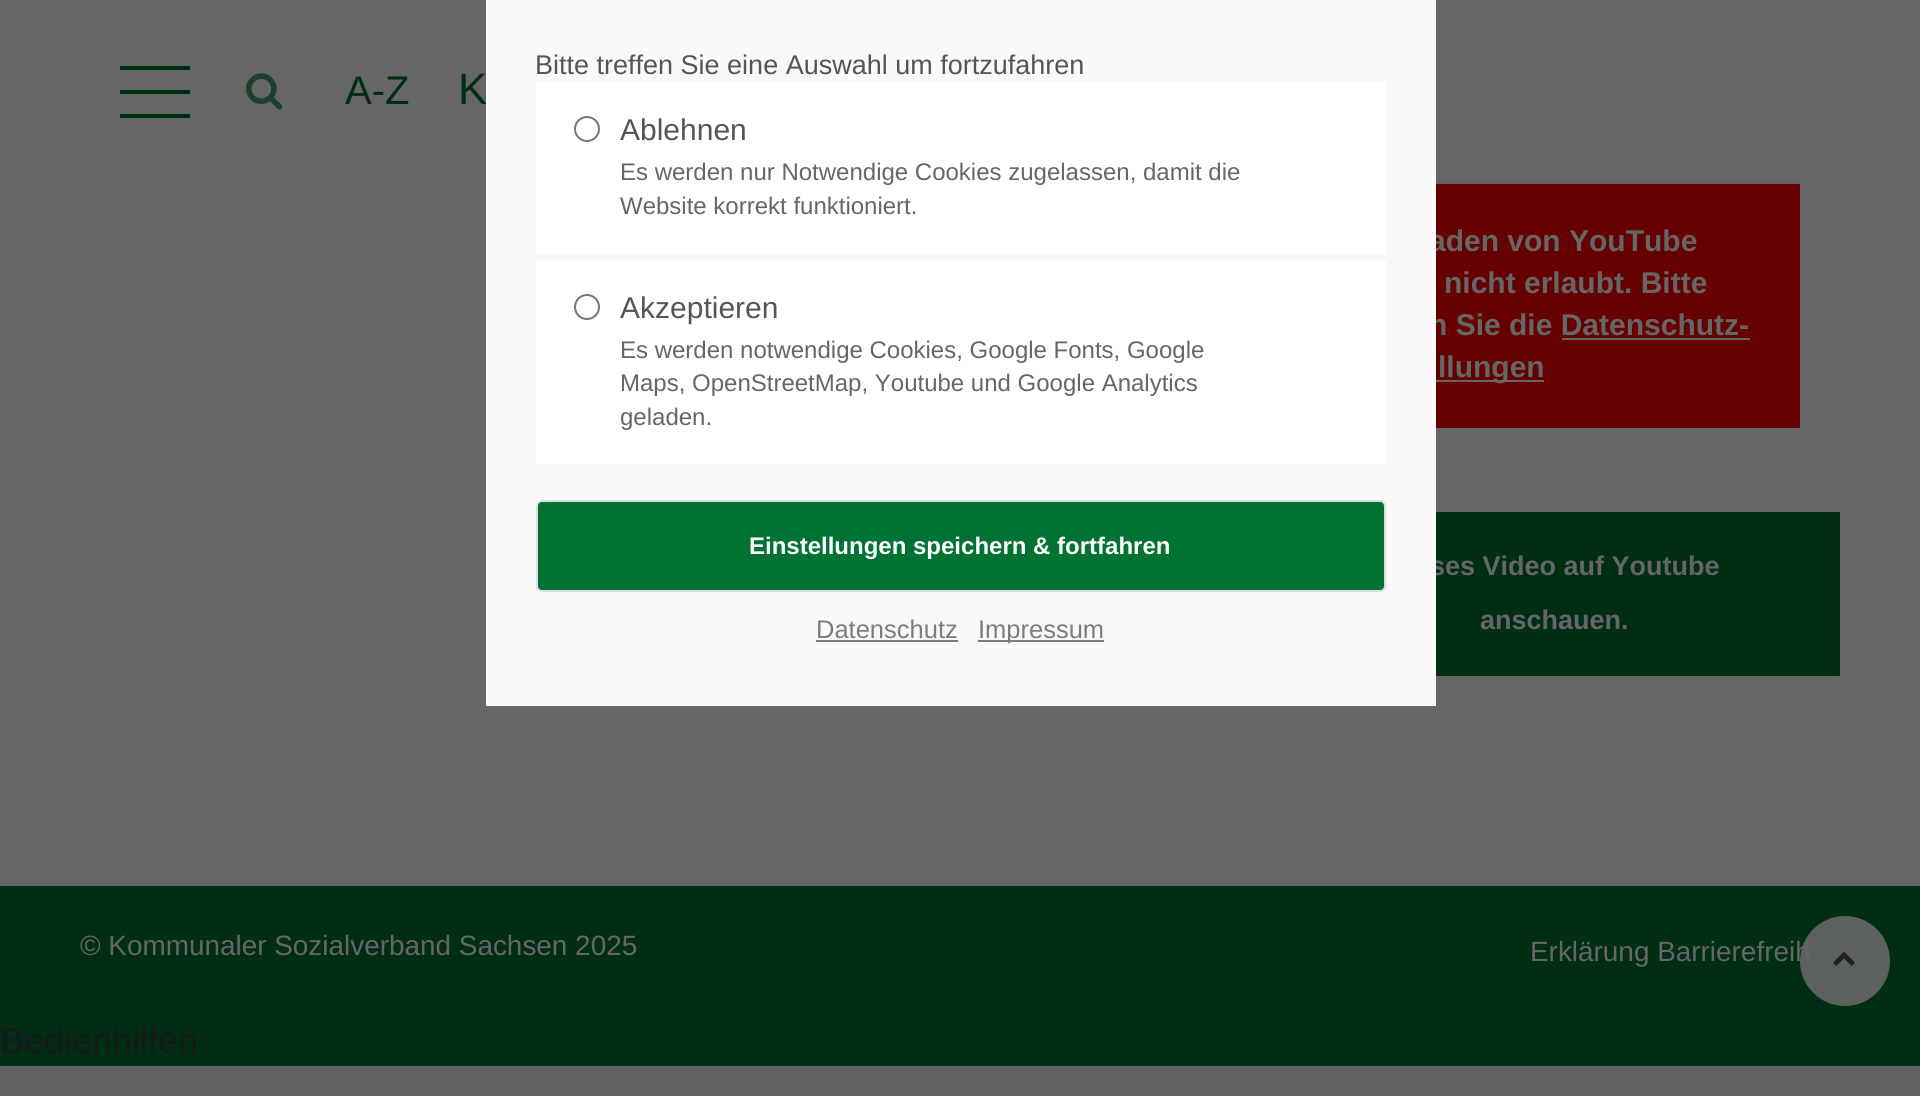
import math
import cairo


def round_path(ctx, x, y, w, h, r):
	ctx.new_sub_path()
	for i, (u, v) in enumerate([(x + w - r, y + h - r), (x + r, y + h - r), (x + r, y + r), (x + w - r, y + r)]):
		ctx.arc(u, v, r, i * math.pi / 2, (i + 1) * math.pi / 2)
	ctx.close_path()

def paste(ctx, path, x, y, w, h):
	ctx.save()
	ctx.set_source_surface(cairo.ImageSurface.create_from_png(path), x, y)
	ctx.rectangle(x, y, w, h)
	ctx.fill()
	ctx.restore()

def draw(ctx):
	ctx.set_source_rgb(0.38, 0.38, 0.38)
	ctx.paint()
	ctx.set_source_rgb(0.4, 0.4, 0.4)
	ctx.rectangle(0, 0, 1920, 886)
	ctx.fill()
	ctx.set_source_rgb(0, 0.18, 0.078)
	ctx.rectangle(120, 90, 70, 4)
	ctx.rectangle(120, 66, 70, 4)
	ctx.rectangle(120, 114, 70, 4)
	ctx.fill()
	paste(ctx, 'media/1.png', 246, 73, 37, 37)
	ctx.select_font_face('Liberation Sans')
	ctx.set_font_size(40)
	ctx.move_to(345, 104)
	ctx.show_text('A-Z')
	ctx.set_font_size(44)
	ctx.move_to(458, 104)
	ctx.show_text('K')
	ctx.set_source_rgb(0.4, 0, 0)
	ctx.rectangle(1436, 184, 364, 244)
	ctx.fill()
	ctx.select_font_face('Liberation Sans', cairo.FONT_SLANT_NORMAL, cairo.FONT_WEIGHT_BOLD)
	ctx.set_font_size(30)
	ctx.set_source_rgb(0.4, 0.4, 0.4)
	ctx.move_to(1429, 251)
	ctx.show_text('aden von YouTube')
	ctx.move_to(1429, 335)
	ctx.show_text('n Sie die Datenschutz-')
	ctx.set_source_rgb(0, 0.18, 0.078)
	ctx.rectangle(1436, 512, 404, 164)
	ctx.fill()
	ctx.set_font_size(27)
	ctx.set_source_rgb(0.4, 0.4, 0.4)
	ctx.move_to(1430, 575)
	ctx.show_text('ses Video auf Youtube')
	ctx.set_source_rgb(0.973, 0.973, 0.973)
	ctx.rectangle(486, 0, 950, 706)
	ctx.fill()
	ctx.select_font_face('Liberation Sans')
	ctx.set_source_rgb(0.333, 0.333, 0.333)
	ctx.move_to(535, 74)
	ctx.show_text('Bitte treffen Sie eine Auswahl um fortzufahren')
	ctx.set_source_rgb(1, 1, 1)
	ctx.rectangle(536, 82, 850, 172)
	ctx.fill()
	ctx.arc(587, 129, 12, 0, 2 * math.pi)
	ctx.set_source_rgb(0.463, 0.463, 0.463)
	ctx.stroke()
	ctx.set_font_size(30)
	ctx.set_source_rgb(0.333, 0.333, 0.333)
	ctx.move_to(620, 140)
	ctx.show_text('Ablehnen')
	ctx.set_font_size(24)
	ctx.set_source_rgb(0.4, 0.4, 0.4)
	ctx.move_to(620, 180)
	ctx.show_text('Es werden nur Notwendige Cookies zugelassen, damit die')
	ctx.move_to(620, 214)
	ctx.show_text('Website korrekt funktioniert.')
	ctx.set_source_rgb(1, 1, 1)
	ctx.rectangle(536, 260, 850, 204)
	ctx.fill()
	ctx.arc(587, 307, 12, 0, 2 * math.pi)
	ctx.set_source_rgb(0.463, 0.463, 0.463)
	ctx.stroke()
	ctx.set_font_size(30)
	ctx.set_source_rgb(0.333, 0.333, 0.333)
	ctx.move_to(620, 318)
	ctx.show_text('Akzeptieren')
	ctx.set_font_size(24)
	ctx.set_source_rgb(0.4, 0.4, 0.4)
	for x, y, s in [
		(620, 358, 'Es werden notwendige Cookies, Google Fonts, Google'),
		(620, 391, 'Maps, OpenStreetMap, Youtube und Google Analytics'),
		(620, 425, 'geladen.'),
	]:
		ctx.move_to(x, y)
		ctx.show_text(s)
	ctx.set_source_rgb(0, 0.447, 0.192)
	round_path(ctx, 537, 501, 848, 90, 5)
	ctx.fill_preserve()
	ctx.set_source_rgb(0.867, 0.867, 0.867)
	ctx.stroke()
	ctx.select_font_face('Liberation Sans', cairo.FONT_SLANT_NORMAL, cairo.FONT_WEIGHT_BOLD)
	ctx.set_source_rgb(1, 1, 1)
	ctx.move_to(749, 554)
	ctx.show_text('Einstellungen speichern & fortfahren')
	ctx.select_font_face('Liberation Sans')
	ctx.set_font_size(25.5)
	ctx.set_source_rgb(0.486, 0.486, 0.486)
	ctx.move_to(816, 638)
	ctx.show_text('Datenschutz')
	ctx.rectangle(816, 640, 142, 2)
	ctx.fill()
	ctx.rectangle(978, 640, 126, 2)
	ctx.fill()
	ctx.move_to(978, 638)
	ctx.show_text('Impressum')
	ctx.set_source_rgb(0.4, 0.38, 0.38)
	ctx.rectangle(1436, 180, 364, 4)
	ctx.fill()
	ctx.select_font_face('Liberation Sans', cairo.FONT_SLANT_NORMAL, cairo.FONT_WEIGHT_BOLD)
	ctx.set_font_size(30)
	ctx.set_source_rgb(0.4, 0.4, 0.4)
	ctx.move_to(1444, 293)
	ctx.show_text('nicht erlaubt. Bitte')
	ctx.rectangle(1436, 380, 108, 2)
	ctx.fill()
	ctx.move_to(1438, 377)
	ctx.show_text('llungen')
	ctx.rectangle(1562, 338, 188, 2)
	ctx.fill()
	ctx.set_font_size(27)
	ctx.move_to(1480, 629)
	ctx.show_text('anschauen.')
	ctx.set_source_rgb(0, 0.18, 0.078)
	ctx.rectangle(0, 886, 1920, 180)
	ctx.fill()
	ctx.select_font_face('Liberation Sans')
	ctx.set_font_size(27.9)
	ctx.set_source_rgb(0.4, 0.4, 0.4)
	ctx.move_to(80, 955)
	ctx.show_text('© Kommunaler Sozialverband Sachsen 2025')
	ctx.move_to(1530, 961)
	ctx.show_text('Erklärung Barrierefreih')
	ctx.set_source_rgba(0.4, 0.4, 0.4, 0.9)
	ctx.new_path()
	ctx.arc(1845, 961, 44, 0, 2 * math.pi)
	ctx.fill_preserve()
	ctx.set_source_rgb(0.369, 0.373, 0.369)
	ctx.stroke()
	paste(ctx, 'media/2.png', 1833, 952, 22, 14)
	ctx.set_font_size(36)
	ctx.set_source_rgb(0.094, 0.094, 0.102)
	ctx.move_to(0, 1053)
	ctx.show_text('Bedienhilfen')


surface = cairo.ImageSurface(cairo.FORMAT_RGB24, 1920, 1096)
ctx = cairo.Context(surface)
options = cairo.FontOptions()
options.set_hint_metrics(cairo.HINT_METRICS_OFF)
options.set_hint_style(cairo.HINT_STYLE_NONE)
ctx.set_font_options(options)
ctx.set_miter_limit(4)
draw(ctx)
surface.write_to_png('image.png')
